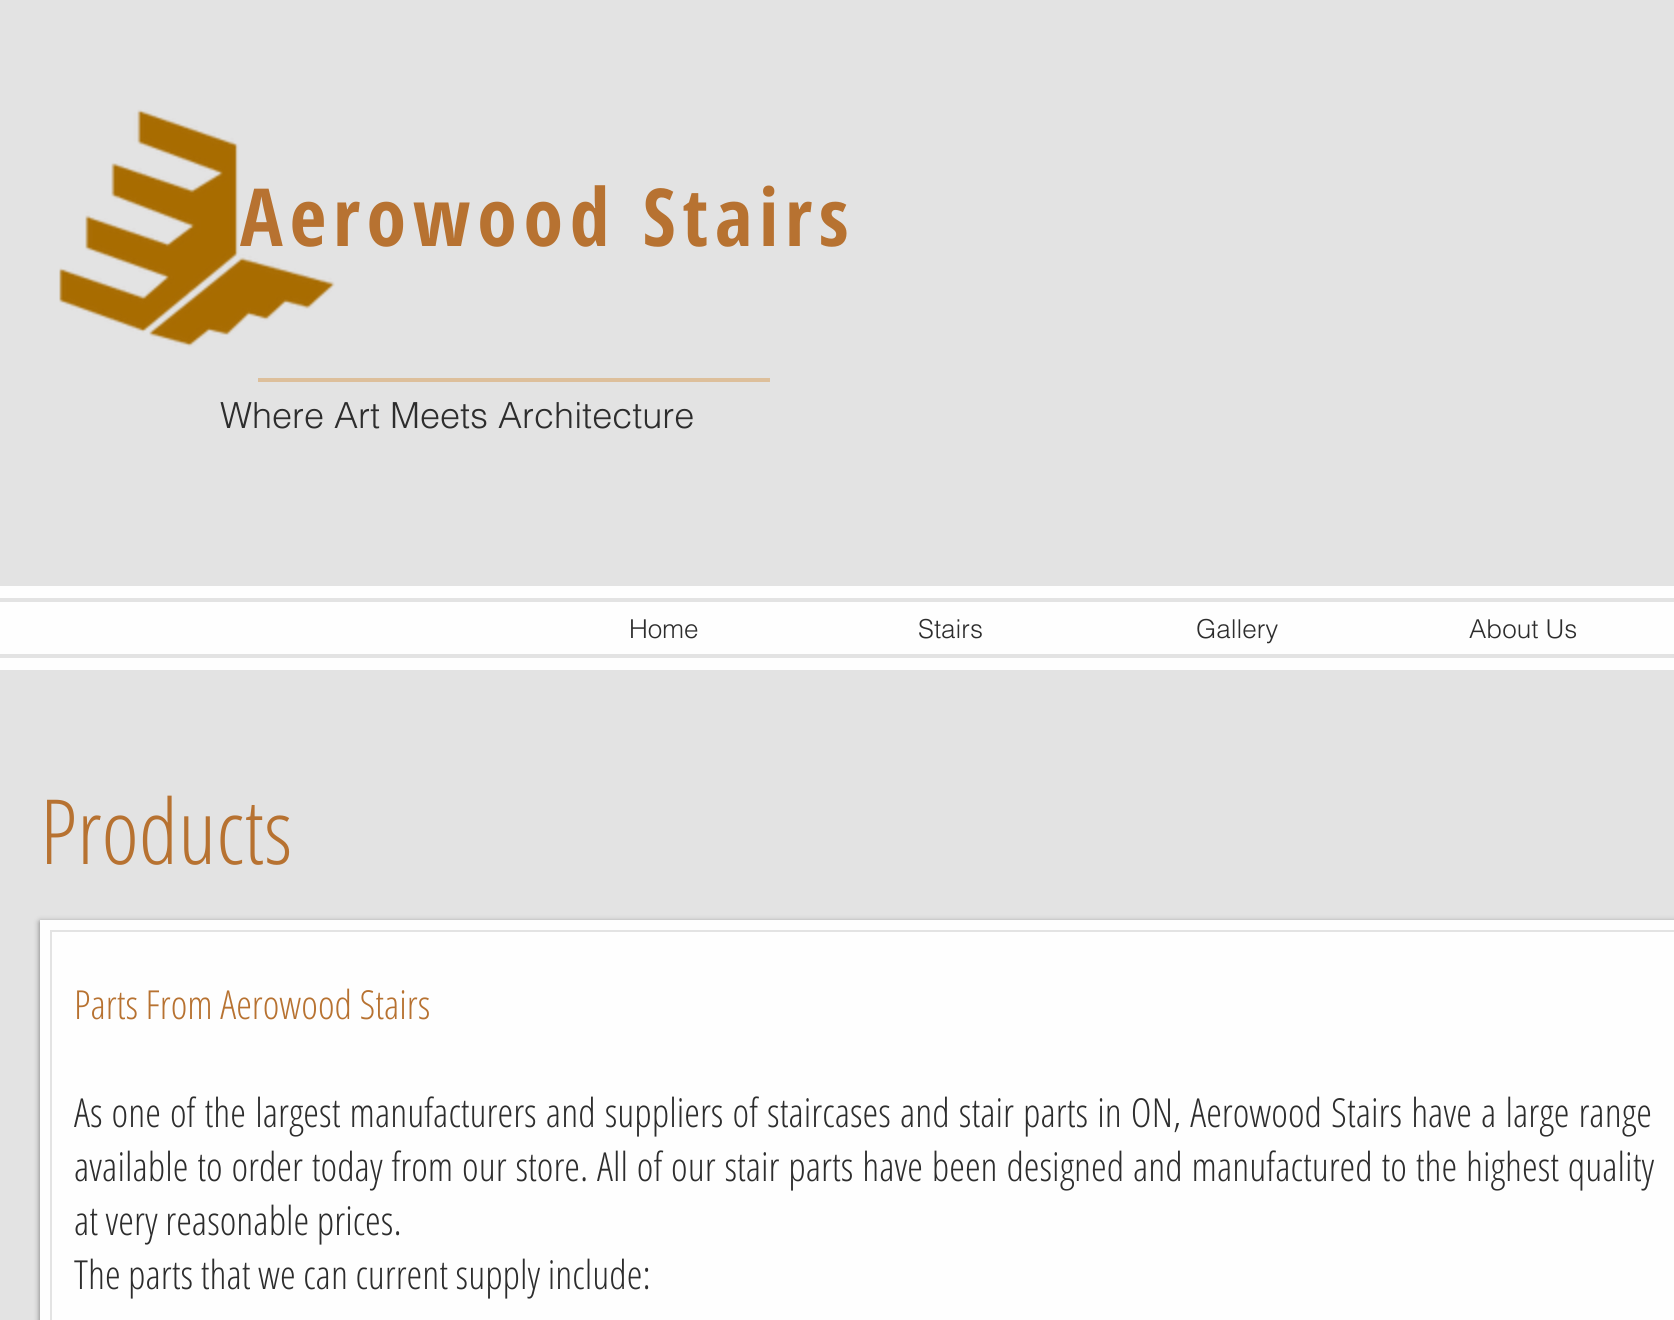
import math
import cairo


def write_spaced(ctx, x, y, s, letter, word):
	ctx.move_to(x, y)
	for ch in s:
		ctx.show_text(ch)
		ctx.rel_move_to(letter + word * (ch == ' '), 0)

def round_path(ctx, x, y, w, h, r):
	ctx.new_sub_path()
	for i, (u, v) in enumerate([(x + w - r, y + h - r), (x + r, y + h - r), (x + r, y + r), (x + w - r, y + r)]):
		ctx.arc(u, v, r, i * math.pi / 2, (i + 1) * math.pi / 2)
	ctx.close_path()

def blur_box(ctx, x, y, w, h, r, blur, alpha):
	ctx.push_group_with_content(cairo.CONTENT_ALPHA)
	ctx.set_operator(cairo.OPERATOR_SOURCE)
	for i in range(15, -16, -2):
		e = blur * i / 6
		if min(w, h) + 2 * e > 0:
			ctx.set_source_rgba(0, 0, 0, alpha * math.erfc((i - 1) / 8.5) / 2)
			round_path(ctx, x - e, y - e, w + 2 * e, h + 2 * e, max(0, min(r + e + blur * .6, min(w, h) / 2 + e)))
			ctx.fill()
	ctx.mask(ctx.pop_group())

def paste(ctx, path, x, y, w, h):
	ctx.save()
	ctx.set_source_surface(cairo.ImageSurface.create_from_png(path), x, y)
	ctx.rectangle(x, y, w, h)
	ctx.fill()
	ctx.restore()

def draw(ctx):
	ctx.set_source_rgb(0.89, 0.89, 0.89)
	ctx.paint()
	paste(ctx, 'media/1.png', 59, 109, 276, 238)
	ctx.select_font_face('Open Sans Condensed', cairo.FONT_SLANT_NORMAL, cairo.FONT_WEIGHT_BOLD)
	ctx.set_font_size(80)
	ctx.set_source_rgb(0.718, 0.447, 0.192)
	write_spaced(ctx, 240, 246, 'Aerowood Stairs', 6.7, 0)
	ctx.set_source_rgb(0.867, 0.749, 0.608)
	ctx.rectangle(258, 378, 512, 4)
	ctx.fill()
	ctx.select_font_face('helvetica Light')
	ctx.set_font_size(36)
	ctx.set_source_rgb(0.176, 0.176, 0.176)
	ctx.move_to(220, 428)
	ctx.show_text('Where Art Meets Architecture')
	ctx.set_source_rgb(0.996, 0.996, 0.996)
	ctx.rectangle(0, 586, 1674, 84)
	ctx.fill()
	ctx.set_source_rgb(0.89, 0.89, 0.89)
	ctx.rectangle(0, 598, 1674, 4)
	ctx.rectangle(0, 654, 1674, 4)
	ctx.fill()
	ctx.set_font_size(26)
	ctx.set_source_rgb(0.176, 0.176, 0.176)
	for x, y, s in [
		(629, 638, 'Home'),
		(918, 638, 'Stairs'),
		(1196, 638, 'Gallery'),
		(1469, 638, 'About Us'),
	]:
		ctx.move_to(x, y)
		ctx.show_text(s)
	ctx.select_font_face('Open Sans Condensed Light')
	ctx.set_font_size(90)
	ctx.set_source_rgb(0.718, 0.447, 0.192)
	ctx.move_to(40, 864)
	ctx.show_text('Products')
	ctx.set_source_rgb(0, 0, 0)
	blur_box(ctx, 40, 922, 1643, 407, 0, 3, 0.5)
	ctx.set_source_rgb(0.996, 0.996, 0.996)
	ctx.rectangle(40, 920, 1634, 400)
	ctx.fill()
	ctx.rectangle(51, 931, 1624, 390)
	ctx.set_source_rgb(0.89, 0.89, 0.89)
	ctx.stroke()
	ctx.set_font_size(40)
	ctx.set_source_rgb(0.718, 0.447, 0.192)
	ctx.move_to(74, 1019)
	ctx.show_text('Parts From Aerowood Stairs')
	ctx.set_source_rgb(0.176, 0.176, 0.176)
	write_spaced(ctx, 74, 1127, 'As one of the largest manufacturers and suppliers of staircases and stair parts in ON, Aerowood Stairs have a large range', 0, 1.6)
	write_spaced(ctx, 74, 1181, 'available to order today from our store. All of our stair parts have been designed and manufactured to the highest quality', 0, 1.3)
	ctx.move_to(74, 1235)
	ctx.show_text('at very reasonable prices.')
	ctx.move_to(74, 1289)
	ctx.show_text('The parts that we can current supply include:')


surface = cairo.ImageSurface(cairo.FORMAT_RGB24, 1674, 1320)
ctx = cairo.Context(surface)
options = cairo.FontOptions()
options.set_hint_metrics(cairo.HINT_METRICS_OFF)
options.set_hint_style(cairo.HINT_STYLE_NONE)
ctx.set_font_options(options)
ctx.set_miter_limit(4)
draw(ctx)
surface.write_to_png('image.png')
